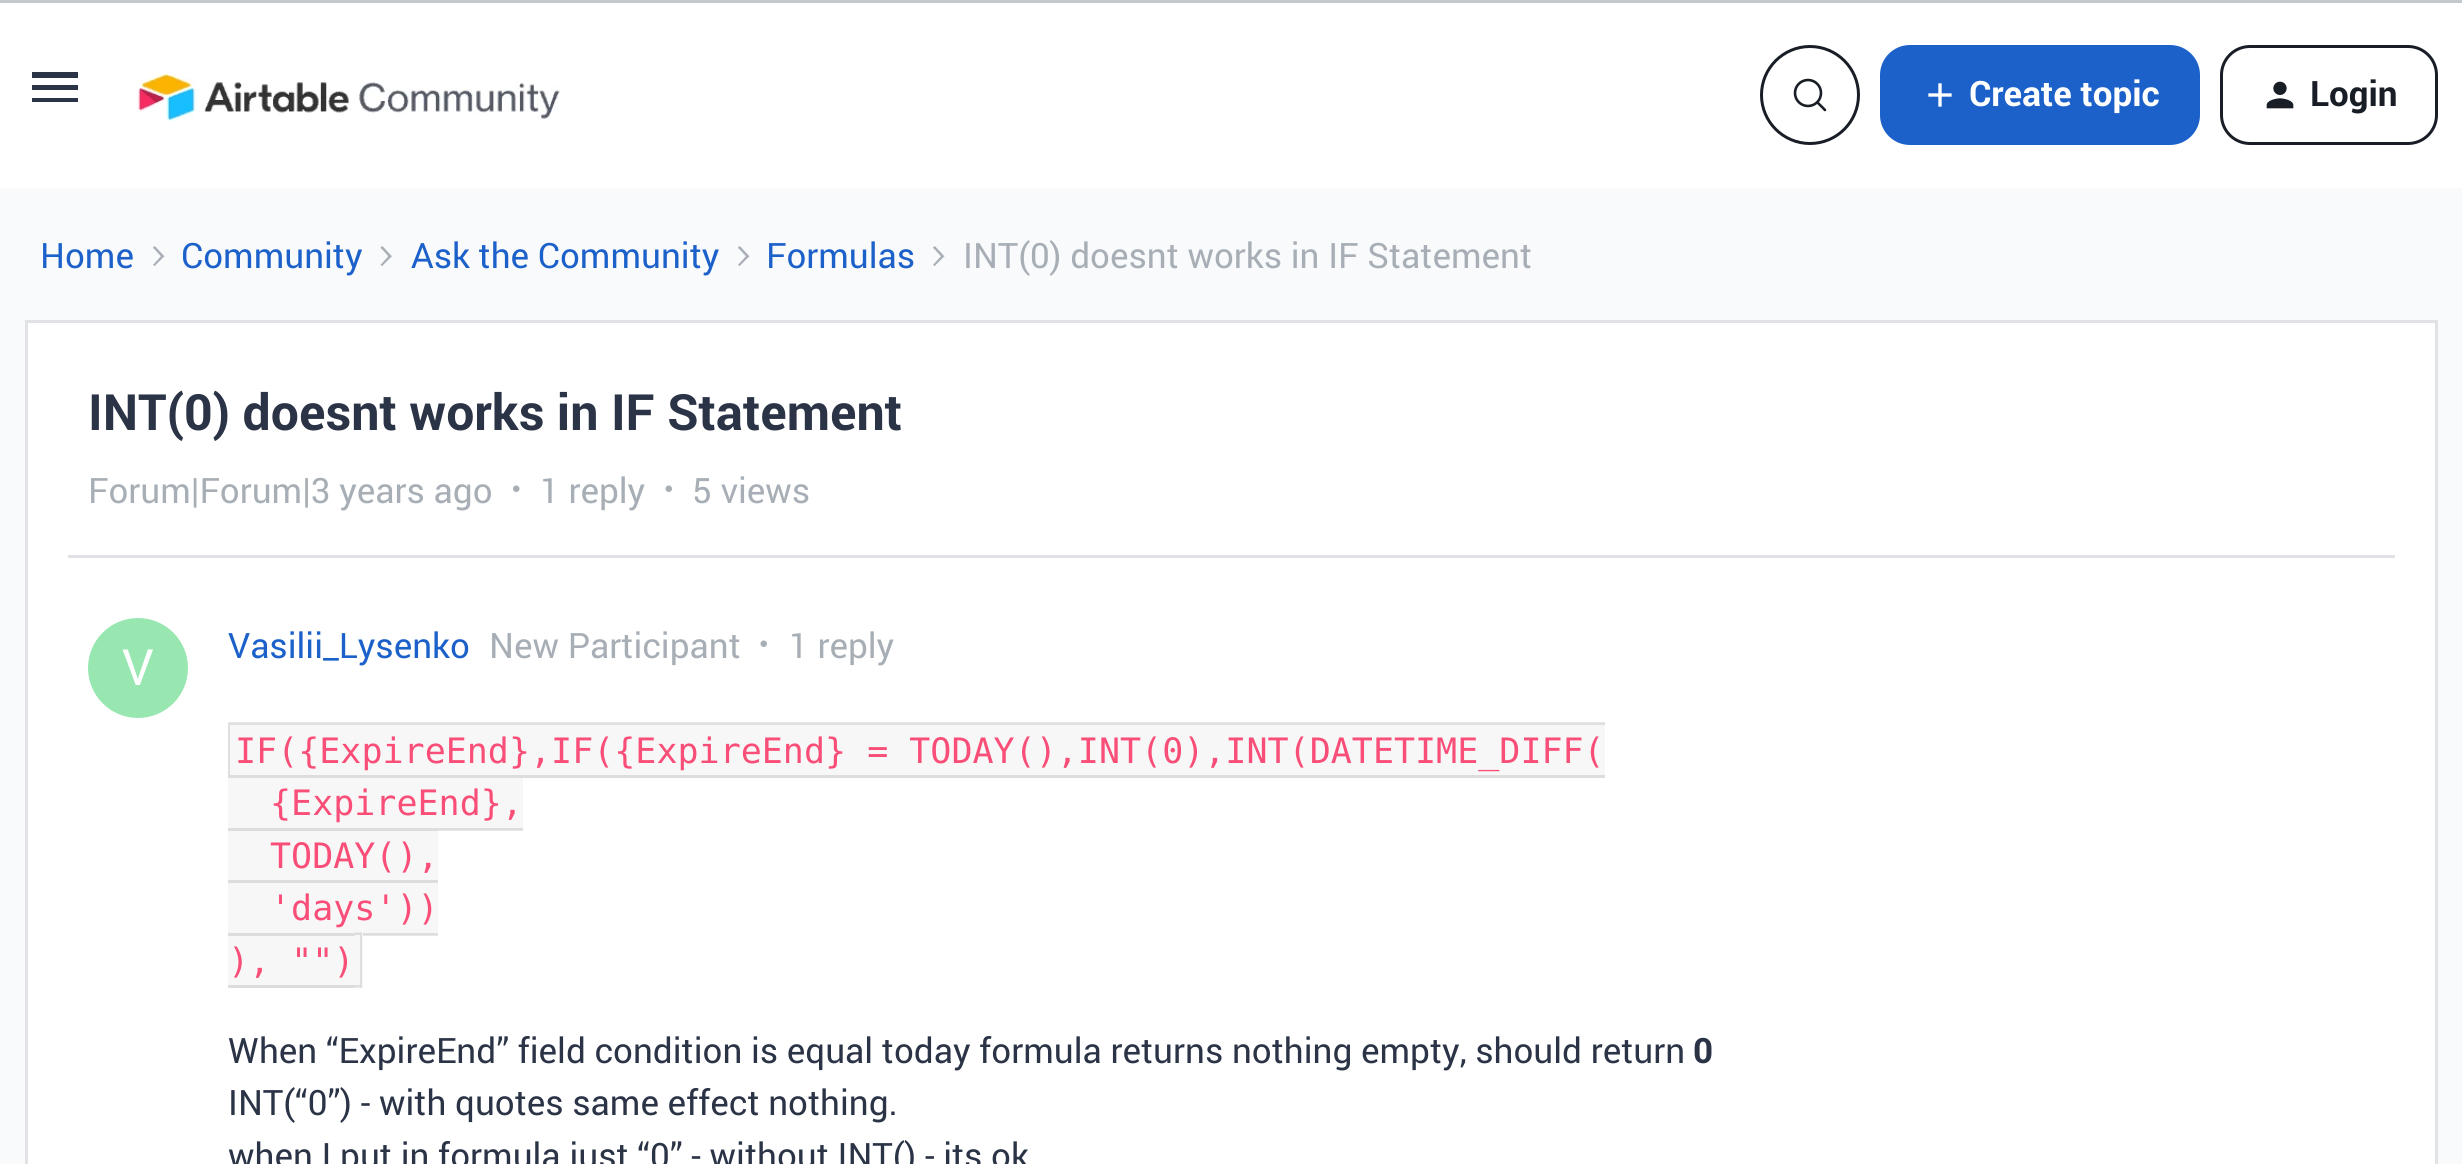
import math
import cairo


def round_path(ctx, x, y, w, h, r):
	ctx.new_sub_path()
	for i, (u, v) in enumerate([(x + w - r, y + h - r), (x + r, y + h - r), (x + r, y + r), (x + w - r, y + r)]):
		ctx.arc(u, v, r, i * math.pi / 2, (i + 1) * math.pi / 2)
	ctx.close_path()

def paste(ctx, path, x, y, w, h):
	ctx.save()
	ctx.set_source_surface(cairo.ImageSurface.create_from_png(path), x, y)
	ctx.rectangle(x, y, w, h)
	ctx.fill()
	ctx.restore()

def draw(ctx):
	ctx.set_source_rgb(0.973, 0.98, 0.988)
	ctx.paint()
	ctx.set_source_rgb(1, 1, 1)
	ctx.rectangle(0, 3, 2462, 185)
	ctx.fill()
	ctx.set_source_rgb(0.769, 0.78, 0.804)
	ctx.rectangle(0, 0, 2462, 3)
	ctx.fill()
	ctx.set_source_rgb(0.169, 0.2, 0.275)
	ctx.new_path()
	ctx.move_to(32, 102)
	ctx.line_to(78, 102)
	ctx.line_to(78, 98)
	ctx.line_to(32, 98)
	ctx.close_path()
	ctx.move_to(32, 90)
	ctx.line_to(78, 90)
	ctx.line_to(78, 85)
	ctx.line_to(32, 85)
	ctx.close_path()
	ctx.move_to(32, 72)
	ctx.line_to(32, 78)
	ctx.line_to(78, 78)
	ctx.line_to(78, 72)
	ctx.close_path()
	ctx.fill()
	paste(ctx, 'media/1.png', 137, 70, 423, 51)
	ctx.arc(1810, 95, 48.5, 0, 2 * math.pi)
	ctx.set_source_rgb(0.094, 0.114, 0.149)
	ctx.set_line_width(3)
	ctx.stroke()
	ctx.arc(1808, 93, 13, 0, 2 * math.pi)
	ctx.set_line_width(2.6)
	ctx.stroke()
	ctx.new_path()
	ctx.move_to(1817.5, 102.5)
	ctx.line_to(1825, 110)
	ctx.set_line_cap(cairo.LINE_CAP_ROUND)
	ctx.stroke()
	ctx.set_source_rgb(0.106, 0.38, 0.788)
	round_path(ctx, 1881.5, 46.5, 317, 97, 28.5)
	ctx.fill_preserve()
	ctx.set_line_width(3)
	ctx.set_line_cap(cairo.LINE_CAP_BUTT)
	ctx.stroke()
	paste(ctx, 'media/2.png', 1928, 83, 24, 24)
	ctx.select_font_face('Roboto', cairo.FONT_SLANT_NORMAL, cairo.FONT_WEIGHT_BOLD)
	ctx.set_font_size(35)
	ctx.set_source_rgb(1, 1, 1)
	ctx.move_to(1969, 106)
	ctx.show_text('Create topic')
	round_path(ctx, 2221.5, 46.5, 215, 97, 28.5)
	ctx.set_source_rgb(0.094, 0.114, 0.149)
	ctx.stroke()
	paste(ctx, 'media/3.png', 2266, 81, 28, 28)
	ctx.move_to(2310, 106)
	ctx.show_text('Login')
	ctx.select_font_face('Roboto')
	ctx.set_source_rgb(0.106, 0.38, 0.788)
	ctx.move_to(40, 268)
	ctx.show_text('Home')
	paste(ctx, 'media/4.png', 153, 246, 12, 20)
	ctx.move_to(181, 268)
	ctx.show_text('Community')
	paste(ctx, 'media/5.png', 380, 246, 12, 20)
	ctx.move_to(411, 268)
	ctx.show_text('Ask the Community')
	paste(ctx, 'media/4.png', 738, 246, 12, 20)
	ctx.move_to(766, 268)
	ctx.show_text('Formulas')
	paste(ctx, 'media/4.png', 933, 246, 12, 20)
	ctx.set_source_rgb(0.655, 0.682, 0.71)
	ctx.move_to(963, 268)
	ctx.show_text('INT(0) doesnt works in IF Statement')
	ctx.set_source_rgb(1, 1, 1)
	ctx.rectangle(28, 323, 2407, 841)
	ctx.fill()
	ctx.set_source_rgb(0.902, 0.902, 0.902)
	ctx.rectangle(363, 935, 75, 1)
	ctx.rectangle(438, 830, 85, 1)
	ctx.fill()
	ctx.rectangle(26.5, 321.5, 2410, 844)
	ctx.set_source_rgb(0.878, 0.886, 0.902)
	ctx.stroke()
	ctx.select_font_face('Roboto', cairo.FONT_SLANT_NORMAL, cairo.FONT_WEIGHT_BOLD)
	ctx.set_font_size(50)
	ctx.set_source_rgb(0.169, 0.2, 0.275)
	ctx.move_to(88, 430)
	ctx.show_text('INT(0) doesnt works in IF Statement')
	ctx.select_font_face('Roboto')
	ctx.set_font_size(35)
	ctx.set_source_rgb(0.655, 0.682, 0.71)
	ctx.move_to(88, 503)
	ctx.show_text('Forum|Forum|3 years ago')
	paste(ctx, 'media/6.png', 513, 485, 7, 7)
	ctx.move_to(540, 503)
	ctx.show_text('1 reply')
	paste(ctx, 'media/7.png', 665, 485, 7, 7)
	ctx.move_to(692, 503)
	ctx.show_text('5 views')
	ctx.set_source_rgb(0.878, 0.886, 0.902)
	ctx.rectangle(68, 555, 2327, 3)
	ctx.fill()
	ctx.set_source_rgb(0.596, 0.906, 0.694)
	ctx.arc(138, 668, 50, 0, 2 * math.pi)
	ctx.fill()
	ctx.set_font_size(50)
	ctx.set_source_rgb(1, 1, 1)
	ctx.move_to(122, 685)
	ctx.show_text('V')
	ctx.set_font_size(35)
	ctx.set_source_rgb(0.106, 0.38, 0.788)
	ctx.move_to(228, 658)
	ctx.show_text('Vasilii_Lysenko')
	ctx.set_source_rgb(0.655, 0.682, 0.71)
	ctx.move_to(489, 658)
	ctx.show_text('New Participant')
	paste(ctx, 'media/7.png', 760, 640, 7, 7)
	ctx.move_to(789, 658)
	ctx.show_text('1 reply')
	ctx.set_source_rgb(0.965, 0.965, 0.965)
	ctx.rectangle(228, 723, 1377, 52)
	ctx.fill()
	ctx.select_font_face('DejaVu Sans Mono')
	ctx.set_source_rgb(0.973, 0.306, 0.471)
	ctx.move_to(235, 763)
	ctx.show_text('IF({ExpireEnd},IF({ExpireEnd} = TODAY(),INT(0),INT(DATETIME_DIFF(')
	ctx.set_source_rgba(0, 0, 0, 0.1)
	ctx.new_path()
	ctx.move_to(228, 722)
	ctx.line_to(1605, 722)
	ctx.line_to(1605, 725)
	ctx.line_to(230, 725)
	ctx.close_path()
	ctx.fill()
	ctx.set_source_rgb(0.867, 0.867, 0.867)
	ctx.new_path()
	ctx.move_to(1605, 778)
	ctx.line_to(228, 778)
	ctx.line_to(230, 775)
	ctx.line_to(1605, 775)
	ctx.close_path()
	ctx.fill()
	ctx.set_source_rgba(0, 0, 0, 0.1)
	ctx.new_path()
	ctx.move_to(228, 778)
	ctx.line_to(228, 722)
	ctx.line_to(230, 725)
	ctx.line_to(230, 775)
	ctx.close_path()
	ctx.fill()
	ctx.set_source_rgb(0.867, 0.867, 0.867)
	ctx.rectangle(228, 775, 2, 3)
	ctx.fill()
	ctx.set_source_rgb(0.965, 0.965, 0.965)
	ctx.rectangle(228, 778, 295, 50)
	ctx.fill()
	ctx.set_source_rgb(0.973, 0.306, 0.471)
	ctx.move_to(270, 815)
	ctx.show_text('{ExpireEnd},')
	ctx.set_source_rgb(0.867, 0.867, 0.867)
	ctx.rectangle(438, 828, 85, 2)
	ctx.rectangle(228, 828, 210, 3)
	ctx.fill()
	ctx.set_source_rgb(0.965, 0.965, 0.965)
	ctx.rectangle(228, 831, 210, 49)
	ctx.fill()
	ctx.set_source_rgb(0.973, 0.306, 0.471)
	ctx.move_to(270, 868)
	ctx.show_text('TODAY(),')
	ctx.set_source_rgb(0.867, 0.867, 0.867)
	ctx.rectangle(228, 880, 210, 3)
	ctx.fill()
	ctx.set_source_rgb(0.965, 0.965, 0.965)
	ctx.rectangle(228, 883, 210, 50)
	ctx.fill()
	ctx.set_source_rgb(0.973, 0.306, 0.471)
	ctx.move_to(270, 920)
	ctx.show_text('\'days\'))')
	ctx.set_source_rgb(0.867, 0.867, 0.867)
	ctx.rectangle(363, 933, 75, 2)
	ctx.rectangle(228, 933, 127, 3)
	ctx.fill()
	ctx.set_source_rgb(0.965, 0.965, 0.965)
	ctx.rectangle(355, 933, 8, 55)
	ctx.fill()
	ctx.set_source_rgb(0.867, 0.867, 0.867)
	ctx.new_path()
	ctx.move_to(355, 932.5)
	ctx.line_to(362.5, 932.5)
	ctx.line_to(360, 935)
	ctx.line_to(355, 935)
	ctx.close_path()
	ctx.fill()
	ctx.set_source_rgb(0.965, 0.965, 0.965)
	ctx.rectangle(228, 936, 127, 49)
	ctx.fill()
	ctx.set_source_rgb(0.973, 0.306, 0.471)
	ctx.move_to(228, 973)
	ctx.show_text('), "")')
	ctx.set_source_rgb(0.867, 0.867, 0.867)
	ctx.rectangle(228, 985, 127, 3)
	ctx.fill()
	ctx.set_source_rgba(0, 0, 0, 0.1)
	ctx.new_path()
	ctx.move_to(362, 932)
	ctx.line_to(362, 988)
	ctx.line_to(360, 985)
	ctx.line_to(360, 935)
	ctx.close_path()
	ctx.fill()
	ctx.new_path()
	ctx.move_to(362.5, 987.5)
	ctx.line_to(355, 987.5)
	ctx.line_to(355, 985)
	ctx.line_to(360, 985)
	ctx.close_path()
	ctx.fill()
	ctx.select_font_face('Roboto')
	ctx.set_source_rgb(0.169, 0.2, 0.275)
	ctx.move_to(228, 1063)
	ctx.show_text('When “ExpireEnd” field condition is equal today formula returns nothing empty, should return')
	ctx.select_font_face('Roboto', cairo.FONT_SLANT_NORMAL, cairo.FONT_WEIGHT_BOLD)
	ctx.move_to(1693, 1063)
	ctx.show_text('0')
	ctx.select_font_face('Roboto')
	ctx.move_to(228, 1115)
	ctx.show_text('INT(“0”) - with quotes same effect nothing.')
	ctx.move_to(228, 1168)
	ctx.show_text('when I put in formula just “0” - without INT() - its ok')


surface = cairo.ImageSurface(cairo.FORMAT_RGB24, 2462, 1164)
ctx = cairo.Context(surface)
options = cairo.FontOptions()
options.set_hint_metrics(cairo.HINT_METRICS_OFF)
options.set_hint_style(cairo.HINT_STYLE_NONE)
ctx.set_font_options(options)
ctx.set_miter_limit(4)
draw(ctx)
surface.write_to_png('image.png')
